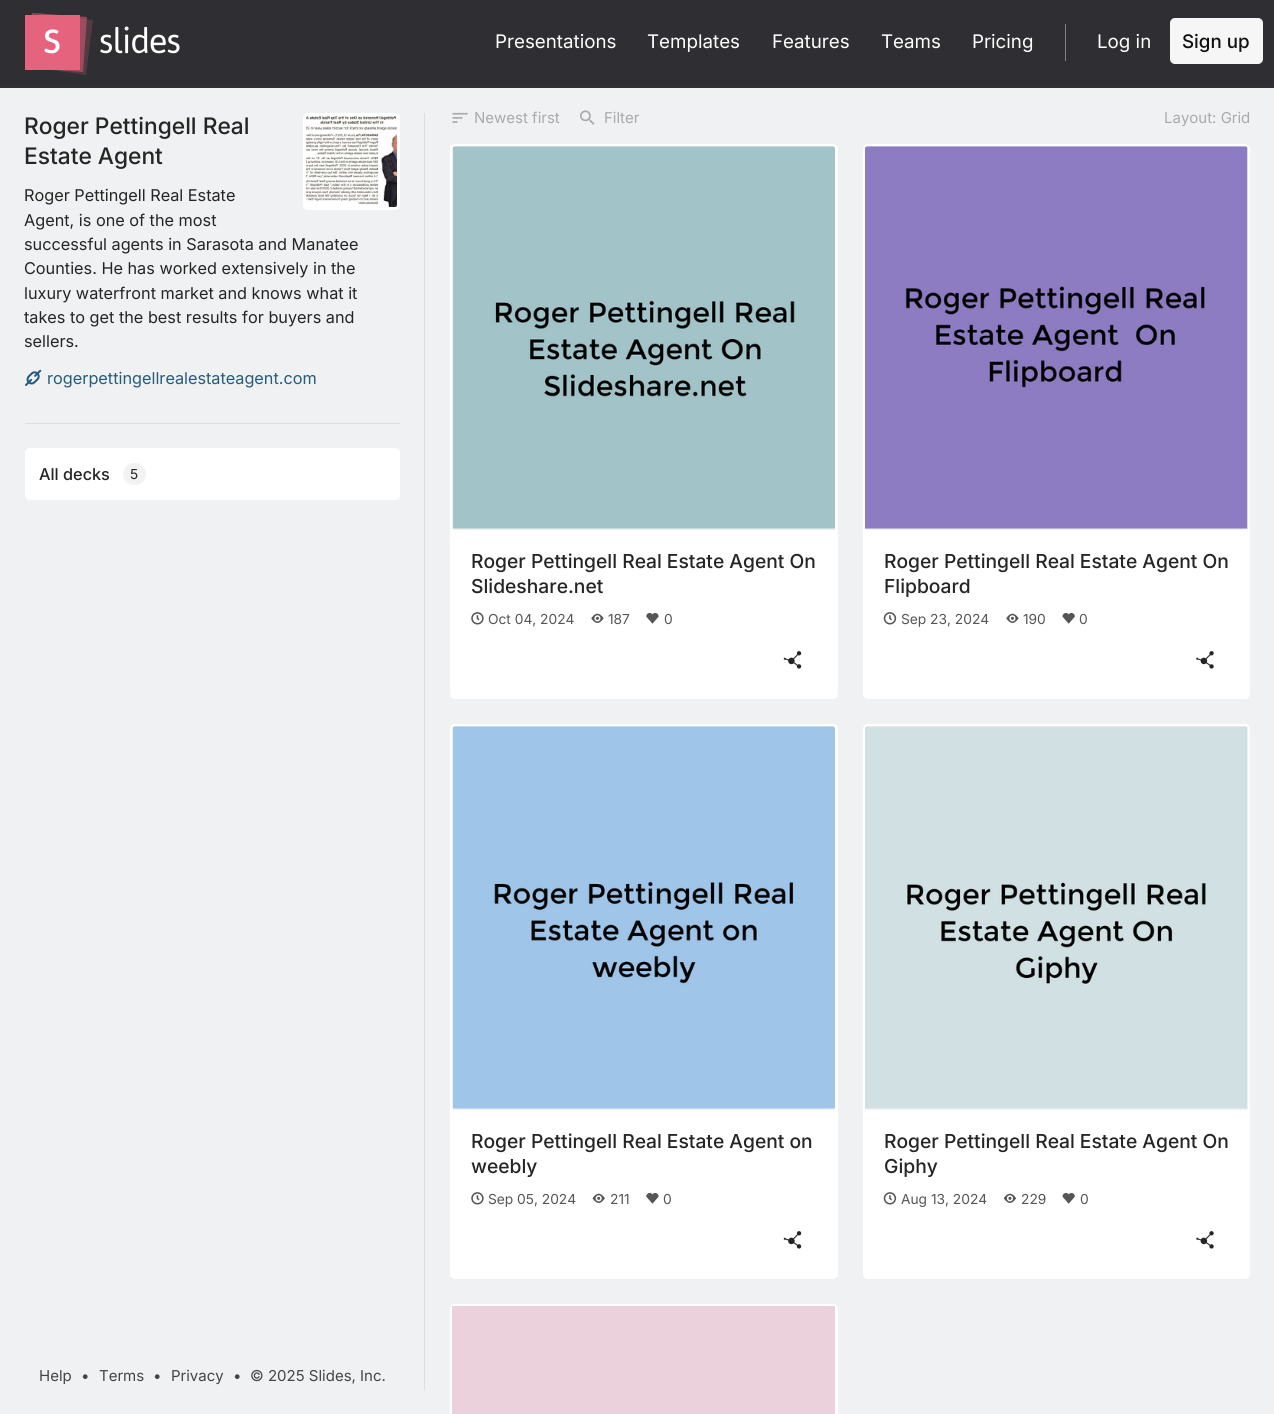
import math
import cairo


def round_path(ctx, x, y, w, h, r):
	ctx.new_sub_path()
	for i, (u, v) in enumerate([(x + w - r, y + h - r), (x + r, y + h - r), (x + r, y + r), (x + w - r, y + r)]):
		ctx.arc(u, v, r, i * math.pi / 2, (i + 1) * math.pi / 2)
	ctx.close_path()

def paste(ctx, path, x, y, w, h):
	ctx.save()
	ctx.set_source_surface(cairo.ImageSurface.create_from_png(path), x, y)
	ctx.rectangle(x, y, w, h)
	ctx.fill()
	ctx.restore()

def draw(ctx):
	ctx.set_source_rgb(0.941, 0.945, 0.949)
	ctx.paint()
	ctx.set_source_rgb(0.184, 0.184, 0.2)
	ctx.rectangle(0, 0, 1274, 88)
	ctx.fill()
	ctx.set_source_rgb(0.2, 0.2, 0.2)
	ctx.rectangle(0, 86, 1274, 1)
	ctx.fill()
	ctx.set_source_rgb(0.325, 0.224, 0.259)
	ctx.new_path()
	ctx.move_to(39, 13)
	ctx.line_to(93, 20)
	ctx.line_to(86, 75)
	ctx.line_to(31, 67)
	ctx.close_path()
	ctx.fill()
	ctx.set_source_rgba(0.898, 0.388, 0.486, 0.5)
	ctx.new_path()
	ctx.move_to(32, 13)
	ctx.line_to(87, 17)
	ctx.line_to(83, 72)
	ctx.line_to(28, 68)
	ctx.close_path()
	ctx.fill()
	ctx.set_source_rgb(0.898, 0.388, 0.486)
	ctx.rectangle(25, 15, 55, 55)
	ctx.fill()
	paste(ctx, 'media/1.png', 44, 29, 16, 25)
	paste(ctx, 'media/2.png', 100, 26, 80, 28)
	ctx.select_font_face('Inter')
	ctx.set_font_size(18.75)
	ctx.set_source_rgb(1, 1, 1)
	for x, y, s in [
		(495, 48, 'Presentations'),
		(647, 48, 'Templates'),
		(772, 48, 'Features'),
		(881, 48, 'Teams'),
		(972, 48, 'Pricing'),
	]:
		ctx.move_to(x, y)
		ctx.show_text(s)
	ctx.set_source_rgb(0.51, 0.51, 0.522)
	ctx.rectangle(1065, 24, 1, 37)
	ctx.fill()
	ctx.set_source_rgb(1, 1, 1)
	ctx.move_to(1097, 48)
	ctx.show_text('Log in')
	ctx.set_source_rgb(0.961, 0.961, 0.961)
	round_path(ctx, 1170, 18, 93, 46, 5)
	ctx.fill()
	ctx.select_font_face('Inter Medium')
	ctx.set_source_rgb(0.067, 0.067, 0.067)
	ctx.move_to(1182, 48)
	ctx.show_text('Sign up')
	ctx.set_source_rgb(0.867, 0.867, 0.867)
	ctx.rectangle(25, 423, 375, 1)
	ctx.fill()
	paste(ctx, 'media/3.png', 306, 116, 91, 91)
	round_path(ctx, 304.5, 114.5, 94, 94, 3.5)
	ctx.set_source_rgb(1, 1, 1)
	ctx.set_line_width(3)
	ctx.stroke()
	ctx.set_font_size(22.75)
	ctx.set_source_rgb(0.145, 0.145, 0.145)
	ctx.move_to(24, 134)
	ctx.show_text('Roger Pettingell Real')
	ctx.move_to(24, 164)
	ctx.show_text('Estate Agent')
	ctx.select_font_face('Inter')
	ctx.set_font_size(16.25)
	for x, y, s in [
		(24, 201, 'Roger Pettingell Real Estate'),
		(24, 226, 'Agent, is one of the most'),
		(24, 250, 'successful agents in Sarasota and Manatee'),
		(24, 274, 'Counties. He has worked extensively in the'),
		(24, 299, 'luxury waterfront market and knows what it'),
		(24, 323, 'takes to get the best results for buyers and'),
		(24, 347, 'sellers.'),
	]:
		ctx.move_to(x, y)
		ctx.show_text(s)
	paste(ctx, 'media/4.png', 25, 369, 17, 17)
	ctx.set_source_rgb(0.145, 0.361, 0.486)
	ctx.move_to(47, 384)
	ctx.show_text('rogerpettingellrealestateagent.com')
	ctx.set_source_rgb(0.867, 0.867, 0.867)
	ctx.rectangle(424, 113, 1, 1277)
	ctx.fill()
	ctx.set_source_rgb(1, 1, 1)
	round_path(ctx, 25, 448, 375, 52, 5)
	ctx.fill()
	ctx.select_font_face('Inter Medium')
	ctx.set_source_rgb(0.145, 0.145, 0.145)
	ctx.move_to(39, 480)
	ctx.show_text('All decks')
	ctx.set_source_rgb(0.949, 0.949, 0.949)
	round_path(ctx, 123, 463, 23, 22, 11)
	ctx.fill()
	ctx.select_font_face('Inter')
	ctx.set_font_size(13.75)
	ctx.set_source_rgb(0.145, 0.145, 0.145)
	ctx.move_to(130, 479)
	ctx.show_text('5')
	ctx.set_font_size(15)
	ctx.set_source_rgb(0.267, 0.267, 0.267)
	for x, y, s in [
		(39, 1381, 'Help'),
		(81, 1381, '•'),
		(99, 1381, 'Terms'),
		(153, 1381, '•'),
		(171, 1381, 'Privacy'),
		(233, 1381, '•'),
		(250, 1381, '© 2025 Slides, Inc.'),
	]:
		ctx.move_to(x, y)
		ctx.show_text(s)
	paste(ctx, 'media/5.png', 452, 112, 16, 11)
	ctx.set_source_rgb(0.667, 0.667, 0.667)
	ctx.move_to(474, 123)
	ctx.show_text('Newest first')
	paste(ctx, 'media/6.png', 580, 110, 15, 15)
	ctx.move_to(604, 123)
	ctx.show_text('Filter')
	ctx.move_to(1164, 123)
	ctx.show_text('Layout: Grid')
	ctx.set_source_rgb(1, 1, 1)
	round_path(ctx, 450, 144, 388, 555, 5)
	ctx.fill()
	ctx.set_source_rgb(0.949, 0.949, 0.949)
	ctx.rectangle(453, 529, 382, 1)
	ctx.fill()
	ctx.set_source_rgb(0.961, 0.961, 0.961)
	ctx.new_path()
	ctx.move_to(455.5, 146)
	ctx.line_to(832.5, 146)
	ctx.curve_to(834, 146, 835, 147, 835, 148.5)
	ctx.line_to(835, 529)
	ctx.line_to(453, 529)
	ctx.line_to(453, 148.5)
	ctx.curve_to(453, 147, 454, 146, 455.5, 146)
	ctx.close_path()
	ctx.fill()
	paste(ctx, 'media/7.png', 452, 146, 383, 383)
	ctx.select_font_face('Inter Medium')
	ctx.set_font_size(19.25)
	ctx.set_source_rgb(0.145, 0.145, 0.145)
	ctx.move_to(471, 568)
	ctx.show_text('Roger Pettingell Real Estate Agent On')
	ctx.move_to(471, 593)
	ctx.show_text('Slideshare.net')
	paste(ctx, 'media/8.png', 471, 612, 13, 13)
	ctx.select_font_face('Inter')
	ctx.set_font_size(13.75)
	ctx.set_source_rgb(0.333, 0.333, 0.333)
	ctx.move_to(488, 624)
	ctx.show_text('Oct 04, 2024')
	paste(ctx, 'media/9.png', 591, 613, 13, 10)
	ctx.move_to(608, 624)
	ctx.show_text('187')
	paste(ctx, 'media/10.png', 646, 612, 13, 12)
	ctx.move_to(664, 624)
	ctx.show_text('0')
	paste(ctx, 'media/11.png', 783, 651, 19, 18)
	ctx.set_source_rgb(1, 1, 1)
	round_path(ctx, 863, 144, 387, 555, 5)
	ctx.fill()
	ctx.set_source_rgb(0.949, 0.949, 0.949)
	ctx.rectangle(865, 529, 383, 1)
	ctx.fill()
	ctx.set_source_rgb(0.961, 0.961, 0.961)
	ctx.new_path()
	ctx.move_to(867.5, 146)
	ctx.line_to(1245.5, 146)
	ctx.curve_to(1247, 146, 1248, 147, 1248, 148.5)
	ctx.line_to(1248, 529)
	ctx.line_to(865, 529)
	ctx.line_to(865, 148.5)
	ctx.curve_to(865, 147, 866, 146, 867.5, 146)
	ctx.close_path()
	ctx.fill()
	paste(ctx, 'media/12.png', 865, 146, 383, 383)
	ctx.select_font_face('Inter Medium')
	ctx.set_font_size(19.25)
	ctx.set_source_rgb(0.145, 0.145, 0.145)
	ctx.move_to(884, 568)
	ctx.show_text('Roger Pettingell Real Estate Agent On')
	ctx.move_to(884, 593)
	ctx.show_text('Flipboard')
	paste(ctx, 'media/13.png', 883, 612, 14, 13)
	ctx.select_font_face('Inter')
	ctx.set_font_size(13.75)
	ctx.set_source_rgb(0.333, 0.333, 0.333)
	ctx.move_to(901, 624)
	ctx.show_text('Sep 23, 2024')
	paste(ctx, 'media/9.png', 1006, 613, 13, 10)
	ctx.move_to(1023, 624)
	ctx.show_text('190')
	paste(ctx, 'media/14.png', 1062, 612, 13, 12)
	ctx.move_to(1079, 624)
	ctx.show_text('0')
	paste(ctx, 'media/15.png', 1196, 651, 18, 18)
	ctx.set_source_rgb(1, 1, 1)
	round_path(ctx, 450, 724, 388, 555, 5)
	ctx.fill()
	ctx.set_source_rgb(0.949, 0.949, 0.949)
	ctx.rectangle(453, 1109, 382, 1)
	ctx.fill()
	ctx.set_source_rgb(0.961, 0.961, 0.961)
	ctx.new_path()
	ctx.move_to(455.5, 726)
	ctx.line_to(832.5, 726)
	ctx.curve_to(834, 726, 835, 727, 835, 728.5)
	ctx.line_to(835, 1109)
	ctx.line_to(453, 1109)
	ctx.line_to(453, 728.5)
	ctx.curve_to(453, 727, 454, 726, 455.5, 726)
	ctx.close_path()
	ctx.fill()
	paste(ctx, 'media/16.png', 452, 726, 383, 383)
	ctx.select_font_face('Inter Medium')
	ctx.set_font_size(19.25)
	ctx.set_source_rgb(0.145, 0.145, 0.145)
	ctx.move_to(471, 1148)
	ctx.show_text('Roger Pettingell Real Estate Agent on')
	ctx.move_to(471, 1173)
	ctx.show_text('weebly')
	paste(ctx, 'media/8.png', 471, 1192, 13, 13)
	ctx.select_font_face('Inter')
	ctx.set_font_size(13.75)
	ctx.set_source_rgb(0.333, 0.333, 0.333)
	ctx.move_to(488, 1204)
	ctx.show_text('Sep 05, 2024')
	paste(ctx, 'media/17.png', 592, 1193, 13, 10)
	ctx.move_to(610, 1204)
	ctx.show_text('211')
	paste(ctx, 'media/10.png', 646, 1192, 13, 12)
	ctx.move_to(663, 1204)
	ctx.show_text('0')
	paste(ctx, 'media/11.png', 783, 1231, 19, 18)
	ctx.set_source_rgb(1, 1, 1)
	round_path(ctx, 863, 724, 387, 555, 5)
	ctx.fill()
	ctx.set_source_rgb(0.949, 0.949, 0.949)
	ctx.rectangle(865, 1109, 383, 1)
	ctx.fill()
	ctx.set_source_rgb(0.961, 0.961, 0.961)
	ctx.new_path()
	ctx.move_to(867.5, 726)
	ctx.line_to(1245.5, 726)
	ctx.curve_to(1247, 726, 1248, 727, 1248, 728.5)
	ctx.line_to(1248, 1109)
	ctx.line_to(865, 1109)
	ctx.line_to(865, 728.5)
	ctx.curve_to(865, 727, 866, 726, 867.5, 726)
	ctx.close_path()
	ctx.fill()
	paste(ctx, 'media/18.png', 865, 726, 383, 383)
	ctx.select_font_face('Inter Medium')
	ctx.set_font_size(19.25)
	ctx.set_source_rgb(0.145, 0.145, 0.145)
	ctx.move_to(884, 1148)
	ctx.show_text('Roger Pettingell Real Estate Agent On')
	ctx.move_to(884, 1173)
	ctx.show_text('Giphy')
	paste(ctx, 'media/13.png', 883, 1192, 14, 13)
	ctx.select_font_face('Inter')
	ctx.set_font_size(13.75)
	ctx.set_source_rgb(0.333, 0.333, 0.333)
	ctx.move_to(901, 1204)
	ctx.show_text('Aug 13, 2024')
	paste(ctx, 'media/19.png', 1003, 1193, 13, 10)
	ctx.move_to(1021, 1204)
	ctx.show_text('229')
	paste(ctx, 'media/14.png', 1062, 1192, 13, 12)
	ctx.move_to(1080, 1204)
	ctx.show_text('0')
	paste(ctx, 'media/15.png', 1196, 1231, 18, 18)
	ctx.set_source_rgb(1, 1, 1)
	ctx.new_path()
	ctx.move_to(455, 1304)
	ctx.line_to(833, 1304)
	ctx.curve_to(836, 1304, 838, 1306, 838, 1309)
	ctx.line_to(838, 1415)
	ctx.line_to(450, 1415)
	ctx.line_to(450, 1309)
	ctx.curve_to(450, 1306, 452, 1304, 455, 1304)
	ctx.close_path()
	ctx.fill()
	ctx.set_source_rgb(0.918, 0.82, 0.863)
	ctx.rectangle(452, 1306, 383, 108)
	ctx.fill()


surface = cairo.ImageSurface(cairo.FORMAT_RGB24, 1274, 1414)
ctx = cairo.Context(surface)
options = cairo.FontOptions()
options.set_hint_metrics(cairo.HINT_METRICS_OFF)
options.set_hint_style(cairo.HINT_STYLE_NONE)
ctx.set_font_options(options)
ctx.set_miter_limit(4)
draw(ctx)
surface.write_to_png('image.png')
